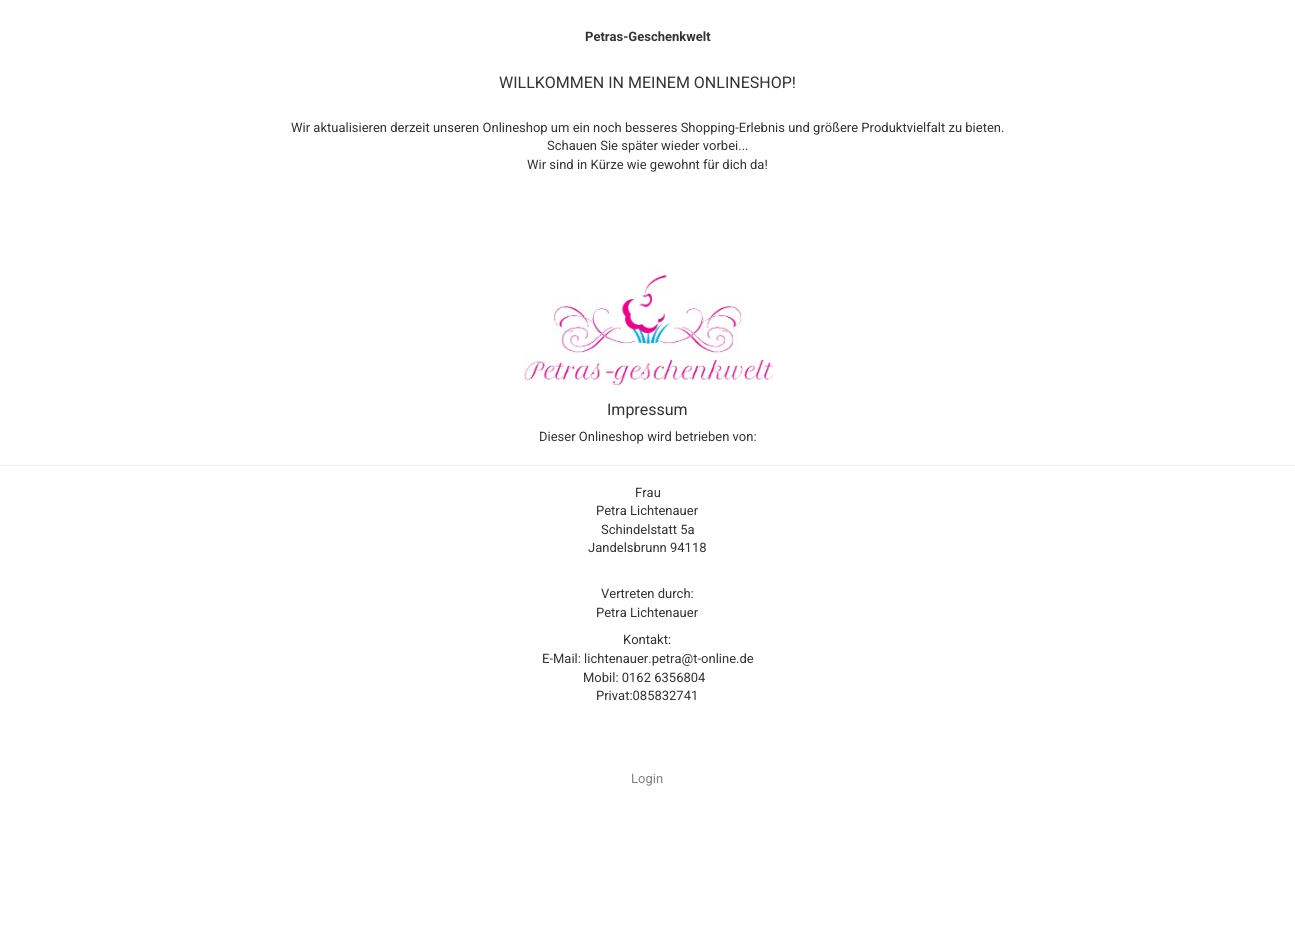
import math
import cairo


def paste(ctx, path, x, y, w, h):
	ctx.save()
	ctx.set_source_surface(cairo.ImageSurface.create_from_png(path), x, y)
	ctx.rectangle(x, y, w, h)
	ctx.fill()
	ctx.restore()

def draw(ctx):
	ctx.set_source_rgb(1, 1, 1)
	ctx.paint()
	ctx.select_font_face('Roboto', cairo.FONT_SLANT_NORMAL, cairo.FONT_WEIGHT_BOLD)
	ctx.set_font_size(13)
	ctx.set_source_rgb(0.2, 0.2, 0.2)
	ctx.move_to(585, 41)
	ctx.show_text('Petras-Geschenkwelt')
	ctx.select_font_face('Roboto')
	ctx.set_font_size(16)
	ctx.move_to(499, 88)
	ctx.show_text('WILLKOMMEN IN MEINEM ONLINESHOP!')
	ctx.set_font_size(13)
	for x, y, s in [
		(291, 132, 'Wir aktualisieren derzeit unseren Onlineshop um ein noch besseres Shopping-Erlebnis und größere Produktvielfalt zu bieten.'),
		(547, 150, 'Schauen Sie später wieder vorbei...'),
		(527, 169, 'Wir sind in Kürze wie gewohnt für dich da!'),
	]:
		ctx.move_to(x, y)
		ctx.show_text(s)
	paste(ctx, 'media/1.png', 523, 267, 250, 125)
	ctx.set_font_size(16)
	ctx.move_to(607, 415)
	ctx.show_text('Impressum')
	ctx.set_font_size(13)
	ctx.move_to(539, 441)
	ctx.show_text('Dieser Onlineshop wird betrieben von:')
	ctx.set_source_rgb(0.933, 0.933, 0.933)
	ctx.rectangle(0, 465, 1295, 1)
	ctx.fill()
	ctx.set_source_rgb(0.2, 0.2, 0.2)
	for x, y, s in [
		(635, 497, 'Frau'),
		(596, 515, 'Petra Lichtenauer'),
		(601, 534, 'Schindelstatt 5a'),
		(588, 552, 'Jandelsbrunn 94118'),
		(601, 598, 'Vertreten durch:'),
		(596, 617, 'Petra Lichtenauer'),
		(623, 644, 'Kontakt:'),
		(542, 663, 'E-Mail: lichtenauer.petra@t-online.de'),
		(583, 682, 'Mobil: 0162 6356804'),
		(596, 700, 'Privat:085832741'),
	]:
		ctx.move_to(x, y)
		ctx.show_text(s)
	ctx.set_source_rgb(0.502, 0.502, 0.502)
	ctx.move_to(631, 783)
	ctx.show_text('Login')


surface = cairo.ImageSurface(cairo.FORMAT_RGB24, 1295, 950)
ctx = cairo.Context(surface)
options = cairo.FontOptions()
options.set_hint_metrics(cairo.HINT_METRICS_OFF)
options.set_hint_style(cairo.HINT_STYLE_NONE)
ctx.set_font_options(options)
ctx.set_miter_limit(4)
draw(ctx)
surface.write_to_png('image.png')
